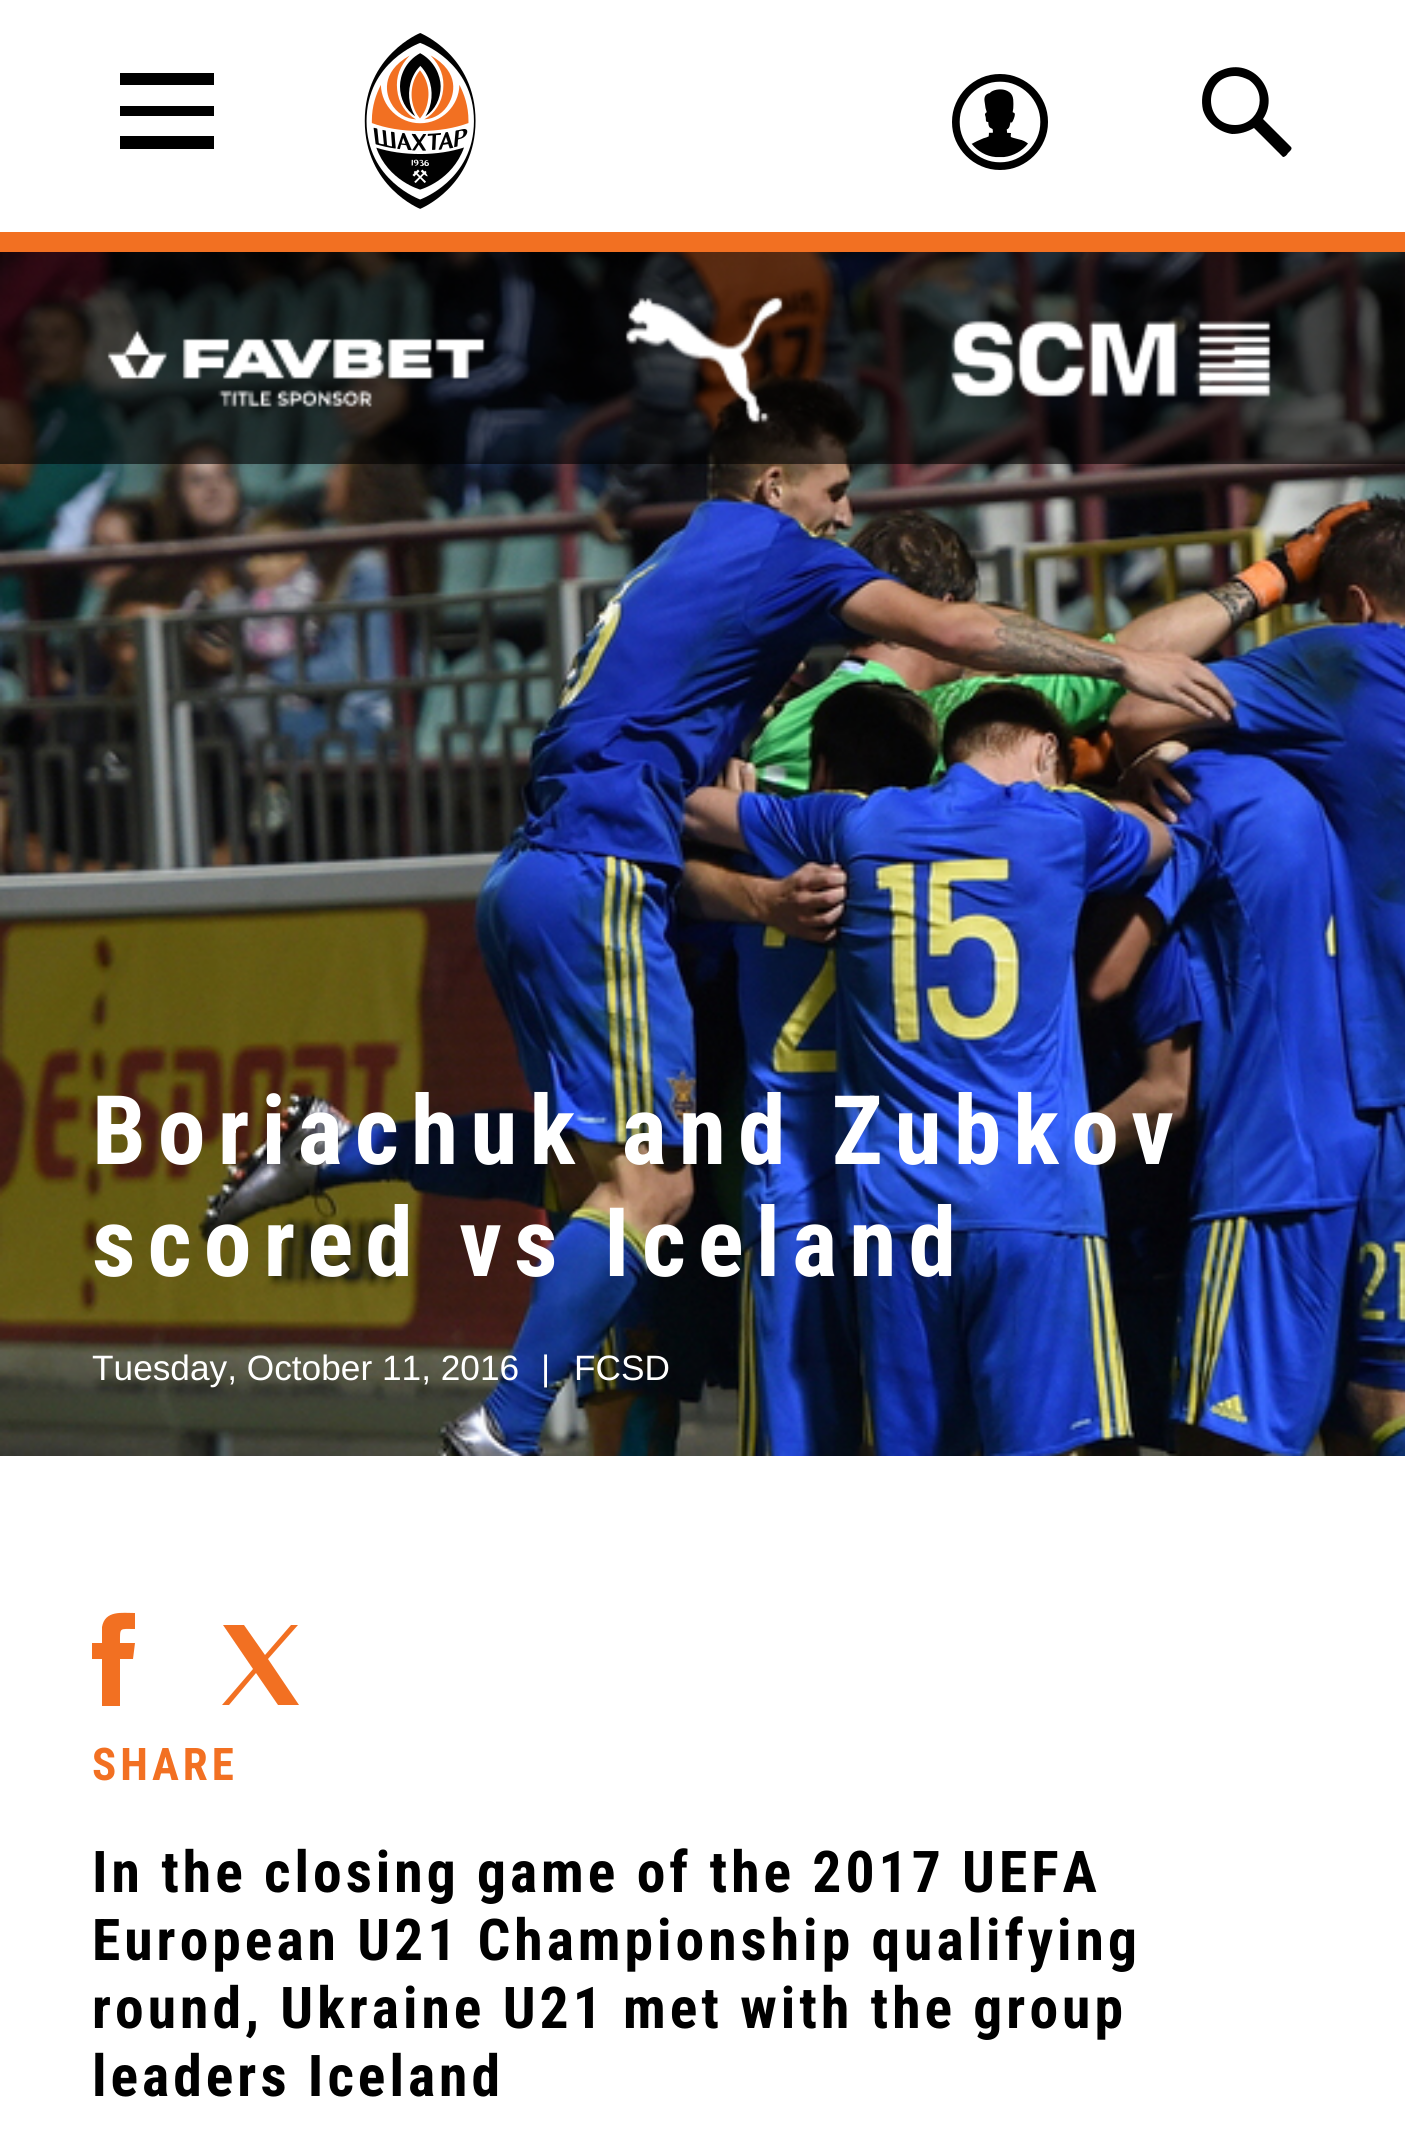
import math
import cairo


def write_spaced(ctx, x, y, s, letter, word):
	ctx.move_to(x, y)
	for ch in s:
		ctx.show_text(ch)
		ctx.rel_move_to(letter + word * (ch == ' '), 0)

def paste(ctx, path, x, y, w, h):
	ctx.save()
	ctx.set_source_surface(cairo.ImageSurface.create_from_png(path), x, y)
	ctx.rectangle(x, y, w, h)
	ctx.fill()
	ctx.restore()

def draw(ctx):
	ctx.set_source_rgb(1, 1, 1)
	ctx.paint()
	ctx.set_source_rgb(0.949, 0.439, 0.133)
	ctx.rectangle(0, 232, 1405, 20)
	ctx.fill()
	ctx.set_source_rgb(0, 0, 0)
	ctx.new_path()
	ctx.move_to(120, 73)
	ctx.line_to(214, 73)
	ctx.line_to(214, 85)
	ctx.line_to(120, 85)
	ctx.close_path()
	ctx.move_to(120, 106)
	ctx.line_to(214, 106)
	ctx.line_to(214, 116)
	ctx.line_to(120, 116)
	ctx.close_path()
	ctx.move_to(120, 136)
	ctx.line_to(214, 136)
	ctx.line_to(214, 149)
	ctx.line_to(120, 149)
	ctx.close_path()
	ctx.fill()
	paste(ctx, 'media/1.png', 364, 33, 112, 176)
	paste(ctx, 'media/2.png', 952, 74, 96, 96)
	ctx.new_path()
	ctx.move_to(1291, 147)
	ctx.line_to(1263, 119)
	ctx.curve_to(1281, 92, 1253, 57, 1222, 70)
	ctx.curve_to(1216, 72, 1210, 77, 1207, 83)
	ctx.curve_to(1202, 91, 1201, 101, 1203, 110)
	ctx.curve_to(1207, 123, 1219, 132, 1232, 134)
	ctx.curve_to(1240, 134, 1247, 132, 1254, 128)
	ctx.line_to(1283, 157)
	ctx.curve_to(1285, 157, 1287, 155, 1288, 153)
	ctx.curve_to(1289, 152, 1293, 149, 1291, 147)
	ctx.close_path()
	ctx.move_to(1235, 125)
	ctx.curve_to(1203, 125, 1203, 76, 1235, 76)
	ctx.curve_to(1240, 76, 1245, 78, 1249, 80)
	ctx.curve_to(1269, 94, 1259, 125, 1235, 125)
	ctx.close_path()
	ctx.fill()
	paste(ctx, 'media/6.png', 0, 252, 1405, 1204)
	ctx.set_source_rgba(0, 0, 0, 0.6)
	ctx.rectangle(0, 252, 1405, 212)
	ctx.fill()
	paste(ctx, 'media/3.png', 107, 329, 378, 78)
	paste(ctx, 'media/4.png', 625, 296, 158, 128)
	paste(ctx, 'media/5.png', 951, 320, 320, 77)
	ctx.select_font_face('Roboto Condensed', cairo.FONT_SLANT_NORMAL, cairo.FONT_WEIGHT_BOLD)
	ctx.set_font_size(96)
	ctx.set_source_rgb(1, 1, 1)
	write_spaced(ctx, 92, 1164, 'Boriachuk and Zubkov', 12, 0)
	write_spaced(ctx, 92, 1276, 'scored vs Iceland', 12, 0)
	ctx.select_font_face('Liberation Sans')
	ctx.set_font_size(35.25)
	for x, y, s in [
		(92, 1380, 'Tuesday, October 11, 2016'),
		(541, 1380, '|'),
		(574, 1380, 'FCSD'),
	]:
		ctx.move_to(x, y)
		ctx.show_text(s)
	ctx.set_source_rgb(0.949, 0.439, 0.133)
	ctx.new_path()
	ctx.move_to(102, 1643)
	ctx.line_to(92, 1643)
	ctx.line_to(92, 1659)
	ctx.line_to(102, 1659)
	ctx.line_to(102, 1706)
	ctx.line_to(120, 1706)
	ctx.line_to(120, 1659)
	ctx.line_to(133, 1659)
	ctx.line_to(135, 1643)
	ctx.line_to(120, 1643)
	ctx.curve_to(120, 1627, 119, 1629, 135, 1629)
	ctx.line_to(135, 1613)
	ctx.curve_to(122, 1613, 105, 1610, 102, 1627)
	ctx.close_path()
	ctx.fill()
	ctx.new_path()
	ctx.move_to(223, 1625)
	ctx.line_to(253, 1669)
	ctx.line_to(222, 1705)
	ctx.line_to(229, 1705)
	ctx.line_to(256, 1673)
	ctx.line_to(278, 1705)
	ctx.line_to(299, 1705)
	ctx.line_to(268, 1659)
	ctx.line_to(298, 1625)
	ctx.line_to(291, 1625)
	ctx.line_to(265, 1655)
	ctx.line_to(244, 1625)
	ctx.close_path()
	ctx.fill()
	ctx.select_font_face('Roboto Condensed', cairo.FONT_SLANT_NORMAL, cairo.FONT_WEIGHT_BOLD)
	ctx.set_font_size(45)
	write_spaced(ctx, 92, 1780, 'SHARE', 4, 0)
	ctx.set_font_size(57.6)
	ctx.set_source_rgb(0, 0, 0)
	for x, y, s in [
		(92, 1892, 'In the closing game of the 2017 UEFA'),
		(92, 1960, 'European U21 Championship qualifying'),
		(92, 2028, 'round, Ukraine U21 met with the group'),
		(92, 2096, 'leaders Iceland'),
	]:
		write_spaced(ctx, x, y, s, 4, 0)


surface = cairo.ImageSurface(cairo.FORMAT_RGB24, 1405, 2143)
ctx = cairo.Context(surface)
options = cairo.FontOptions()
options.set_hint_metrics(cairo.HINT_METRICS_OFF)
options.set_hint_style(cairo.HINT_STYLE_NONE)
ctx.set_font_options(options)
ctx.set_miter_limit(4)
draw(ctx)
surface.write_to_png('image.png')
